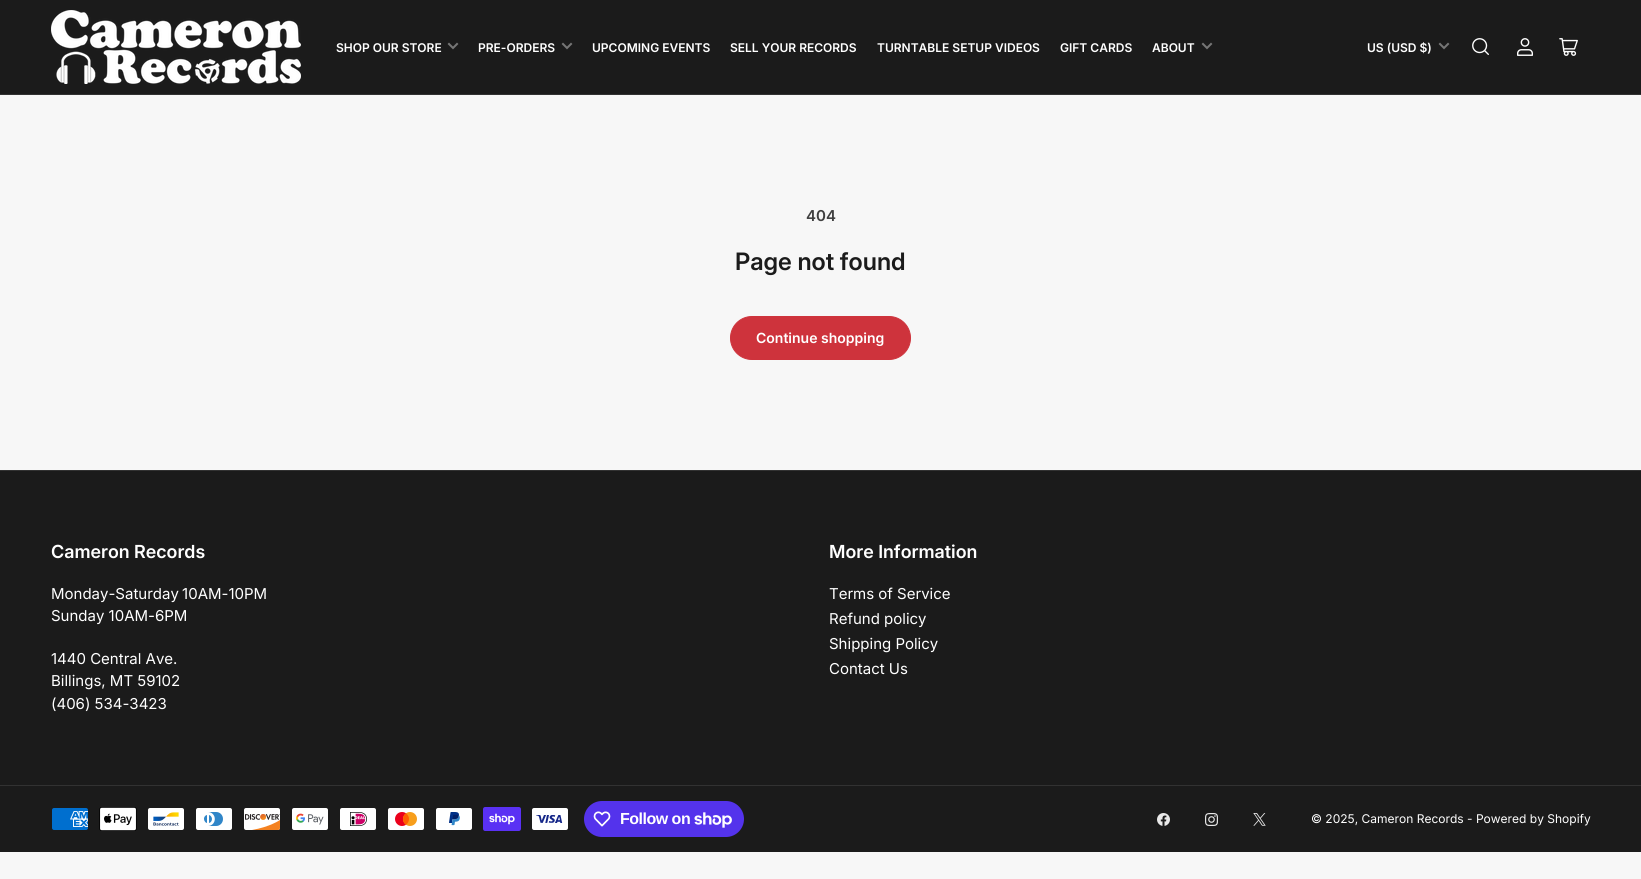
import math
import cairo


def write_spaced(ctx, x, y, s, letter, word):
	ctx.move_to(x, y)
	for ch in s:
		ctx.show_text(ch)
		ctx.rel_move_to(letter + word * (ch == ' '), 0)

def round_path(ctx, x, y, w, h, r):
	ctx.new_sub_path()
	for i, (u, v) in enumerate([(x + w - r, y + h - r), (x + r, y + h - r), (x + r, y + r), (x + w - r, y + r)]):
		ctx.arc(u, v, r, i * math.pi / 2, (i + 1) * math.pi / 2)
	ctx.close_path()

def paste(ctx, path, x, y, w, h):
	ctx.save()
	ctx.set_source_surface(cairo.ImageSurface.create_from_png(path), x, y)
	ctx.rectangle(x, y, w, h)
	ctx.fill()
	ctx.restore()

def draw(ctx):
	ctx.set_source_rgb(0.965, 0.965, 0.965)
	ctx.paint()
	ctx.set_source_rgb(0.106, 0.106, 0.106)
	ctx.rectangle(0, 0, 1641, 94)
	ctx.fill()
	ctx.set_source_rgb(0.196, 0.196, 0.196)
	ctx.rectangle(0, 94, 1641, 1)
	ctx.fill()
	paste(ctx, 'media/1.png', 51, 10, 250, 74)
	ctx.select_font_face('Inter SemiBold')
	ctx.set_font_size(12)
	ctx.set_source_rgb(1, 1, 1)
	ctx.move_to(336, 52)
	ctx.show_text('SHOP OUR STORE')
	ctx.new_path()
	ctx.move_to(457, 44)
	ctx.line_to(453, 48)
	ctx.line_to(449, 44)
	ctx.set_source_rgb(0.463, 0.463, 0.463)
	ctx.set_line_cap(cairo.LINE_CAP_SQUARE)
	ctx.stroke()
	ctx.set_source_rgb(1, 1, 1)
	ctx.move_to(478, 52)
	ctx.show_text('PRE-ORDERS')
	ctx.new_path()
	ctx.move_to(571, 44)
	ctx.line_to(567, 48)
	ctx.line_to(563, 44)
	ctx.set_source_rgb(0.463, 0.463, 0.463)
	ctx.stroke()
	ctx.set_source_rgb(1, 1, 1)
	for x, y, s in [
		(592, 52, 'UPCOMING EVENTS'),
		(730, 52, 'SELL YOUR RECORDS'),
		(877, 52, 'TURNTABLE SETUP VIDEOS'),
		(1060, 52, 'GIFT CARDS'),
		(1152, 52, 'ABOUT'),
	]:
		ctx.move_to(x, y)
		ctx.show_text(s)
	ctx.new_path()
	ctx.move_to(1211, 44)
	ctx.line_to(1207, 48)
	ctx.line_to(1203, 44)
	ctx.set_source_rgb(0.463, 0.463, 0.463)
	ctx.stroke()
	ctx.set_source_rgb(1, 1, 1)
	ctx.move_to(1367, 52)
	ctx.show_text('US (USD $)')
	ctx.new_path()
	ctx.move_to(1448, 44)
	ctx.line_to(1444, 48)
	ctx.line_to(1440, 44)
	ctx.set_source_rgb(0.463, 0.463, 0.463)
	ctx.stroke()
	paste(ctx, 'media/2.png', 1472, 38, 17, 17)
	paste(ctx, 'media/3.png', 1517, 38, 16, 18)
	paste(ctx, 'media/4.png', 1559, 38, 19, 18)
	ctx.set_font_size(15)
	ctx.set_source_rgb(0.251, 0.251, 0.251)
	ctx.move_to(806, 221)
	ctx.show_text('404')
	ctx.select_font_face('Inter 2 SemiBold')
	ctx.set_font_size(24)
	ctx.set_source_rgb(0.106, 0.106, 0.106)
	ctx.move_to(735, 270)
	ctx.show_text('Page not found')
	ctx.set_source_rgb(0.808, 0.2, 0.235)
	round_path(ctx, 730.5, 316.5, 180, 43, 21.5)
	ctx.fill_preserve()
	ctx.set_line_width(1)
	ctx.set_line_cap(cairo.LINE_CAP_BUTT)
	ctx.stroke()
	ctx.select_font_face('Inter SemiBold')
	ctx.set_font_size(14)
	ctx.set_source_rgb(1, 1, 1)
	ctx.move_to(756, 343)
	ctx.show_text('Continue shopping')
	ctx.set_source_rgb(0.106, 0.106, 0.106)
	ctx.rectangle(0, 471, 1641, 314)
	ctx.fill()
	ctx.set_source_rgb(0.196, 0.196, 0.196)
	ctx.rectangle(0, 470, 1641, 1)
	ctx.fill()
	ctx.select_font_face('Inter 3 SemiBold')
	ctx.set_font_size(18)
	ctx.set_source_rgb(1, 1, 1)
	ctx.move_to(51, 558)
	ctx.show_text('Cameron Records')
	ctx.select_font_face('Inter')
	ctx.set_font_size(15)
	write_spaced(ctx, 51, 599, 'Monday-Saturday 10AM-10PM', 0, -1)
	for x, y, s in [
		(51, 621, 'Sunday 10AM-6PM'),
		(51, 664, '1440 Central Ave.'),
		(51, 686, 'Billings, MT 59102'),
		(51, 709, '(406) 534-3423'),
	]:
		ctx.move_to(x, y)
		ctx.show_text(s)
	ctx.select_font_face('Inter 3 SemiBold')
	ctx.set_font_size(18)
	ctx.move_to(829, 558)
	ctx.show_text('More Information')
	ctx.select_font_face('Inter')
	ctx.set_font_size(15)
	for x, y, s in [
		(829, 599, 'Terms of Service'),
		(829, 624, 'Refund policy'),
		(829, 649, 'Shipping Policy'),
		(829, 674, 'Contact Us'),
	]:
		ctx.move_to(x, y)
		ctx.show_text(s)
	ctx.set_source_rgb(0.106, 0.106, 0.106)
	ctx.rectangle(0, 786, 1641, 66)
	ctx.fill()
	ctx.set_source_rgb(0.196, 0.196, 0.196)
	ctx.rectangle(0, 785, 1641, 1)
	ctx.fill()
	paste(ctx, 'media/5.png', 52, 808, 36, 22)
	paste(ctx, 'media/6.png', 99, 807, 38, 24)
	paste(ctx, 'media/7.png', 148, 808, 36, 22)
	paste(ctx, 'media/8.png', 196, 808, 36, 22)
	paste(ctx, 'media/9.png', 244, 808, 36, 22)
	paste(ctx, 'media/10.png', 292, 808, 36, 22)
	paste(ctx, 'media/11.png', 340, 808, 36, 22)
	paste(ctx, 'media/12.png', 388, 808, 36, 22)
	paste(ctx, 'media/13.png', 436, 808, 36, 22)
	paste(ctx, 'media/14.png', 483, 807, 38, 24)
	paste(ctx, 'media/15.png', 532, 808, 36, 22)
	ctx.set_source_rgb(0.329, 0.2, 0.922)
	round_path(ctx, 584, 801, 160, 36, 18)
	ctx.fill()
	paste(ctx, 'media/16.png', 593, 811, 18, 16)
	ctx.select_font_face('Liberation Sans', cairo.FONT_SLANT_NORMAL, cairo.FONT_WEIGHT_BOLD)
	ctx.set_font_size(16)
	ctx.set_source_rgb(1, 1, 1)
	write_spaced(ctx, 620, 824, 'Follow on', -0.5, 0)
	paste(ctx, 'media/17.png', 694, 812, 38, 16)
	paste(ctx, 'media/18.png', 1157, 813, 13, 13)
	paste(ctx, 'media/19.png', 1205, 813, 13, 13)
	paste(ctx, 'media/20.png', 1253, 813, 13, 13)
	ctx.select_font_face('Inter')
	ctx.set_font_size(12)
	ctx.move_to(1311, 823)
	ctx.show_text('© 2025, Cameron Records - Powered by Shopify')


surface = cairo.ImageSurface(cairo.FORMAT_RGB24, 1641, 879)
ctx = cairo.Context(surface)
options = cairo.FontOptions()
options.set_hint_metrics(cairo.HINT_METRICS_OFF)
options.set_hint_style(cairo.HINT_STYLE_NONE)
ctx.set_font_options(options)
ctx.set_miter_limit(4)
draw(ctx)
surface.write_to_png('image.png')
